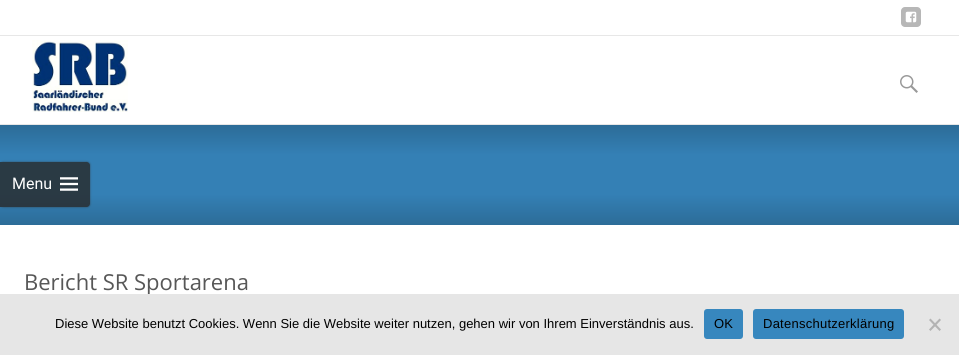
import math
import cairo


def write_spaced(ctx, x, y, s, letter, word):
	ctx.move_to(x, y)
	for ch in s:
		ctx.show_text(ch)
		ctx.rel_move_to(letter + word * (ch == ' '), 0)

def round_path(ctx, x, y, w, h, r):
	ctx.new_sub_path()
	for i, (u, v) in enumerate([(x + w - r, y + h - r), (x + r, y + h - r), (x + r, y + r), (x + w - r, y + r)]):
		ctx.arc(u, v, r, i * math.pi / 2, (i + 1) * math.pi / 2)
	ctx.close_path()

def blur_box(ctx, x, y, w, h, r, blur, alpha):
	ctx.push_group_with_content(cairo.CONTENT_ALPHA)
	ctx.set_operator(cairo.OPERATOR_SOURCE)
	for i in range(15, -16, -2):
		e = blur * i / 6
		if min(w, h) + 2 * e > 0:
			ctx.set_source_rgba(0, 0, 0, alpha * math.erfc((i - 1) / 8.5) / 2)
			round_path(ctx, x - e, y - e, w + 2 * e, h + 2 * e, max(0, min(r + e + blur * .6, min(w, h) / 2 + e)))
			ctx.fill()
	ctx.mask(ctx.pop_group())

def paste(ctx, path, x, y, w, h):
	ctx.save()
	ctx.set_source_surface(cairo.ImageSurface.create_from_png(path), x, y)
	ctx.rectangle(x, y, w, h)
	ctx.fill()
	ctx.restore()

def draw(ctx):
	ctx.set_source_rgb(1, 1, 1)
	ctx.paint()
	ctx.set_source_rgb(0.906, 0.906, 0.906)
	ctx.rectangle(0, 35, 959, 1)
	ctx.fill()
	ctx.set_source_rgb(0.718, 0.718, 0.718)
	round_path(ctx, 901, 7, 20, 20, 4)
	ctx.fill()
	paste(ctx, 'media/1.png', 905, 11, 12, 12)
	gradient = cairo.LinearGradient(480, 125, 480, 225)
	gradient.add_color_stop_rgba(0, 0.173, 0.424, 0.596, 1)
	gradient.add_color_stop_rgba(0.3, 0.204, 0.502, 0.71, 1)
	gradient.add_color_stop_rgba(0.69, 0.204, 0.502, 0.71, 1)
	gradient.add_color_stop_rgba(1, 0.173, 0.424, 0.596, 1)
	ctx.set_source(gradient)
	ctx.rectangle(0, 125, 959, 100)
	ctx.fill()
	ctx.set_source_rgb(0.906, 0.906, 0.906)
	ctx.rectangle(0, 124, 959, 1)
	ctx.fill()
	paste(ctx, 'media/2.png', 32, 40, 96, 72)
	paste(ctx, 'media/3.png', 900, 75, 18, 18)
	ctx.save()
	ctx.set_fill_rule(cairo.FILL_RULE_EVEN_ODD)
	ctx.new_path()
	ctx.move_to(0, 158)
	ctx.line_to(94, 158)
	ctx.line_to(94, 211)
	ctx.line_to(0, 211)
	ctx.close_path()
	ctx.move_to(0, 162)
	ctx.line_to(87, 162)
	ctx.curve_to(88.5, 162, 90, 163.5, 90, 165)
	ctx.line_to(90, 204)
	ctx.curve_to(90, 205.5, 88.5, 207, 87, 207)
	ctx.line_to(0, 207)
	ctx.close_path()
	ctx.clip()
	ctx.set_source_rgb(0.196, 0.196, 0.196)
	blur_box(ctx, 0, 162, 90, 45, 3, 1, 0.64)
	ctx.restore()
	ctx.set_source_rgba(0.157, 0.157, 0.157, 0.8)
	ctx.new_path()
	ctx.move_to(0, 162)
	ctx.line_to(87, 162)
	ctx.curve_to(88.5, 162, 90, 163.5, 90, 165)
	ctx.line_to(90, 204)
	ctx.curve_to(90, 205.5, 88.5, 207, 87, 207)
	ctx.line_to(0, 207)
	ctx.close_path()
	ctx.fill()
	ctx.select_font_face('Roboto')
	ctx.set_font_size(16)
	ctx.set_source_rgb(1, 1, 1)
	ctx.move_to(12, 189)
	ctx.show_text('Menu')
	paste(ctx, 'media/4.png', 60, 177, 18, 14)
	ctx.select_font_face('Open Sans')
	ctx.set_font_size(22)
	ctx.set_source_rgb(0.341, 0.341, 0.341)
	ctx.move_to(24, 290)
	ctx.show_text('Bericht SR Sportarena')
	ctx.set_source_rgb(0.902, 0.902, 0.902)
	ctx.rectangle(0, 294, 959, 61)
	ctx.fill()
	ctx.select_font_face('Liberation Sans')
	ctx.set_font_size(13)
	ctx.set_source_rgb(0, 0, 0)
	ctx.move_to(55, 328)
	ctx.show_text('Diese Website benutzt Cookies. Wenn Sie die Website weiter nutzen, gehen wir von Ihrem Einverständnis aus.')
	ctx.set_source_rgb(0.216, 0.529, 0.745)
	round_path(ctx, 704, 309, 39, 30, 3)
	ctx.fill()
	ctx.set_source_rgb(0, 0, 0)
	write_spaced(ctx, 714, 328, 'OK', 0.25, 0)
	ctx.set_source_rgb(0.216, 0.529, 0.745)
	round_path(ctx, 753, 309, 151, 30, 3)
	ctx.fill()
	ctx.set_source_rgb(0, 0, 0)
	write_spaced(ctx, 763, 328, 'Datenschutzerklärung', 0.25, 0)
	ctx.set_source_rgb(0.702, 0.702, 0.702)
	ctx.new_path()
	ctx.move_to(939.5, 318.5)
	ctx.line_to(941, 320)
	ctx.line_to(930.5, 331)
	ctx.line_to(929, 329.5)
	ctx.close_path()
	ctx.fill()
	ctx.new_path()
	ctx.move_to(929, 320)
	ctx.line_to(930.5, 318.5)
	ctx.line_to(941, 329.5)
	ctx.line_to(939.5, 331)
	ctx.close_path()
	ctx.fill()


surface = cairo.ImageSurface(cairo.FORMAT_RGB24, 959, 355)
ctx = cairo.Context(surface)
options = cairo.FontOptions()
options.set_hint_metrics(cairo.HINT_METRICS_OFF)
options.set_hint_style(cairo.HINT_STYLE_NONE)
ctx.set_font_options(options)
ctx.set_miter_limit(4)
draw(ctx)
surface.write_to_png('image.png')
